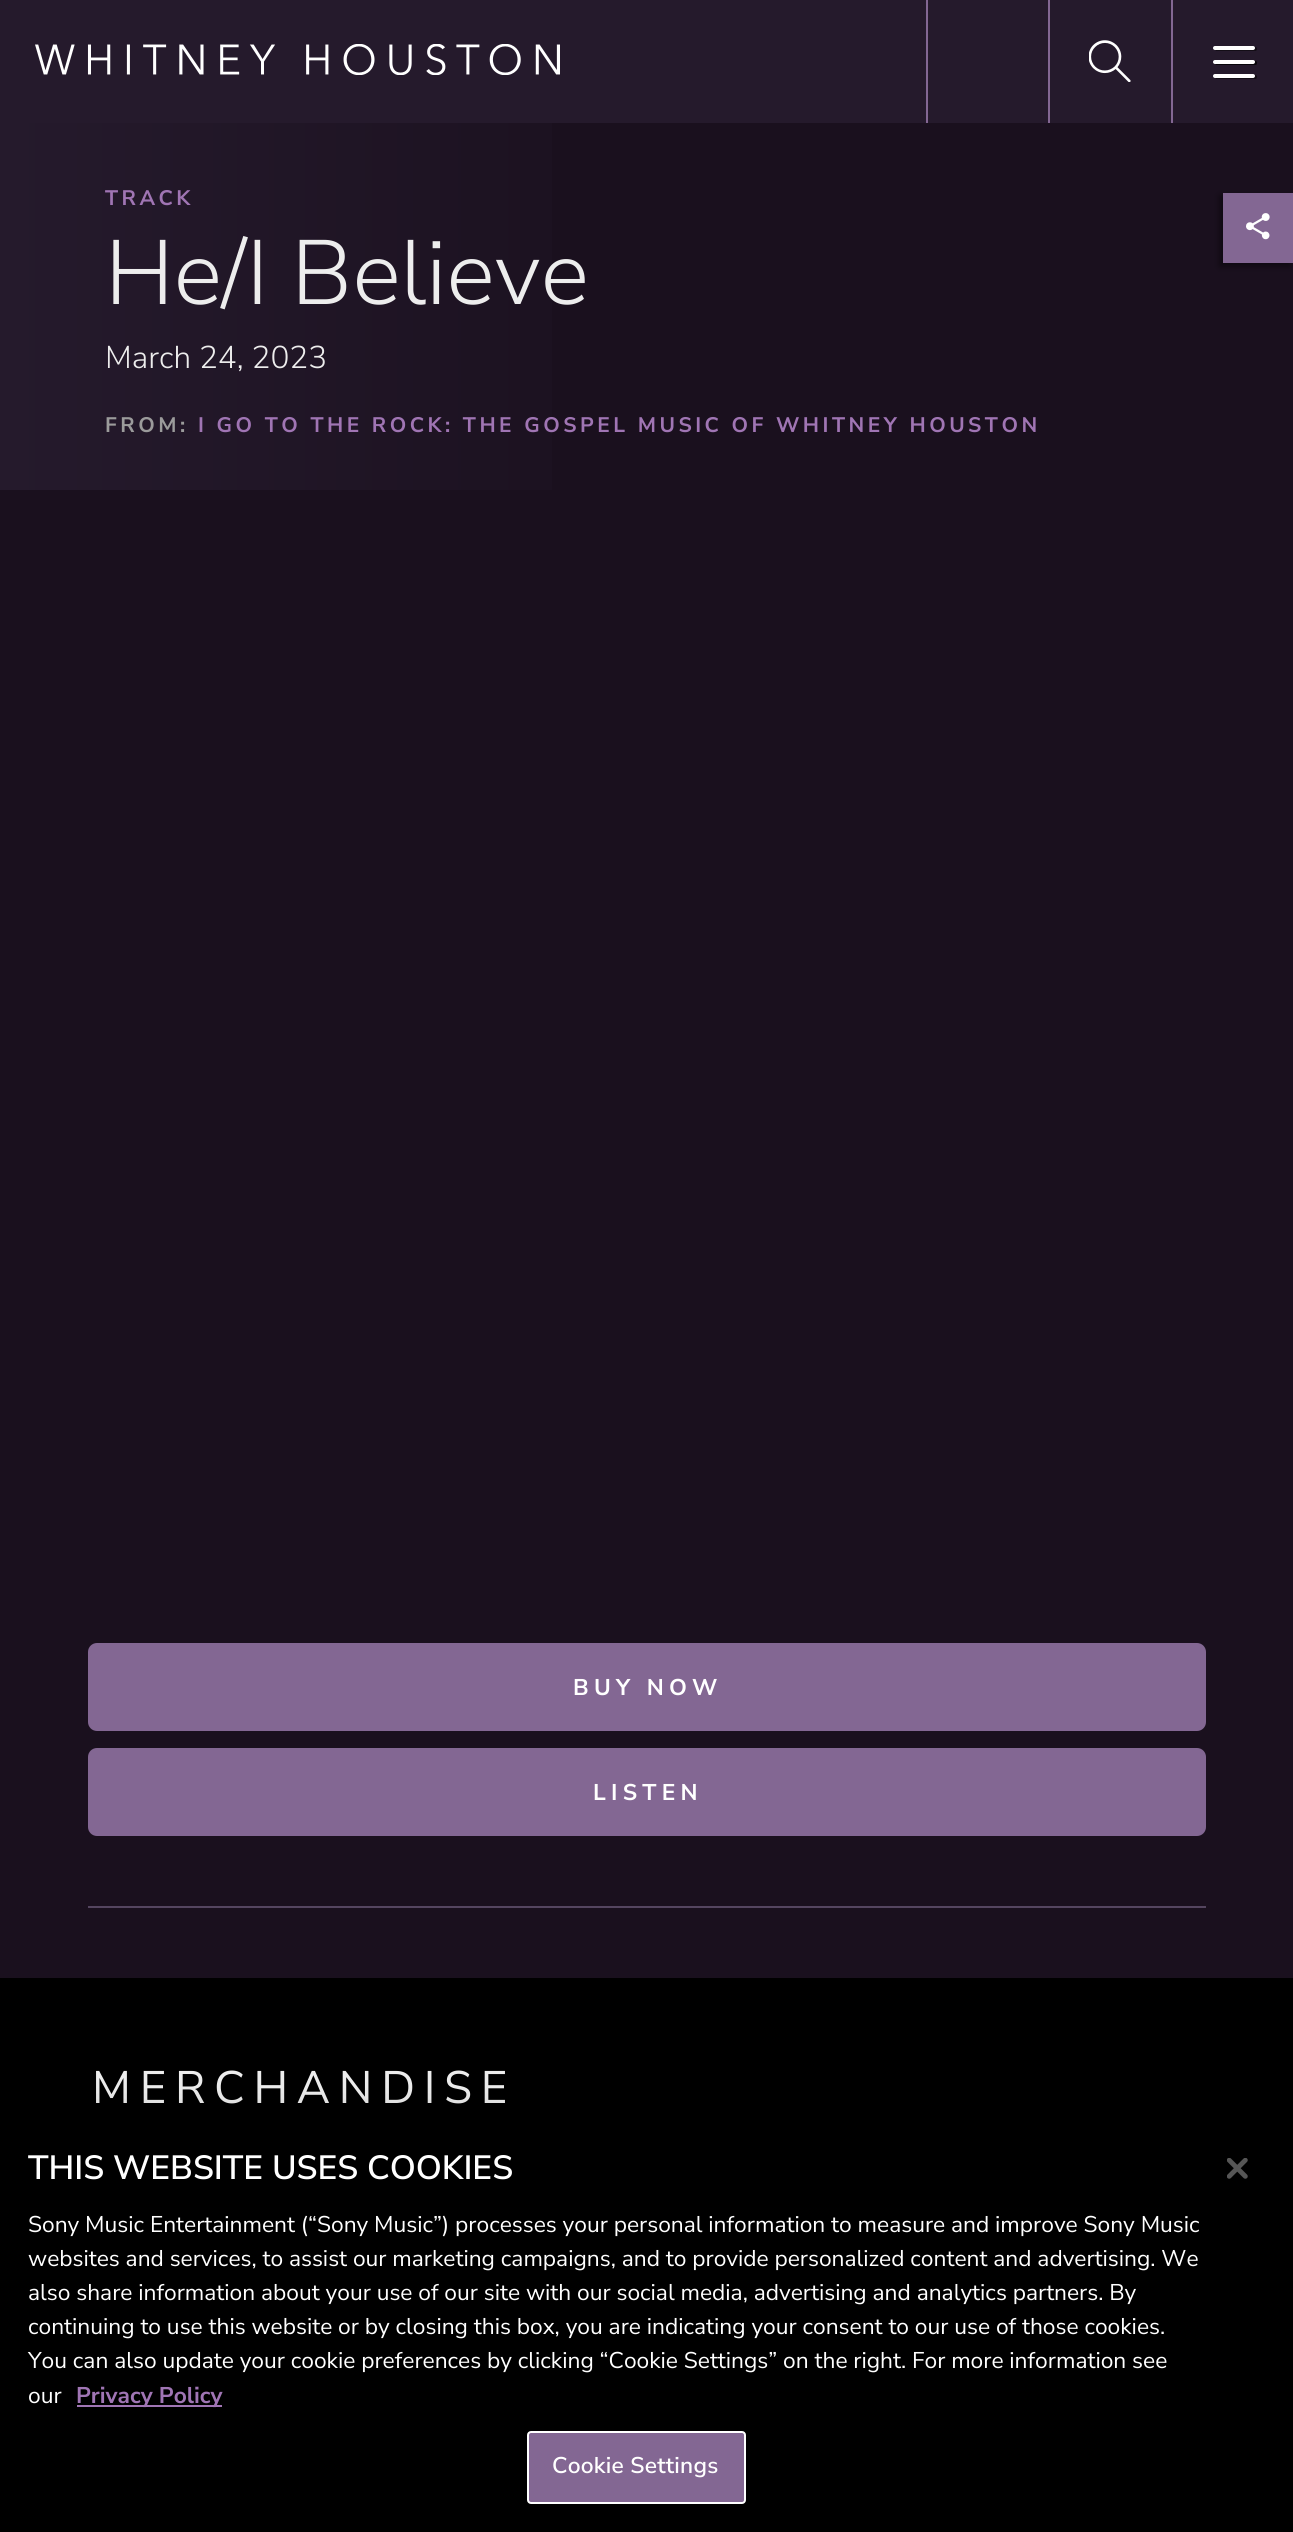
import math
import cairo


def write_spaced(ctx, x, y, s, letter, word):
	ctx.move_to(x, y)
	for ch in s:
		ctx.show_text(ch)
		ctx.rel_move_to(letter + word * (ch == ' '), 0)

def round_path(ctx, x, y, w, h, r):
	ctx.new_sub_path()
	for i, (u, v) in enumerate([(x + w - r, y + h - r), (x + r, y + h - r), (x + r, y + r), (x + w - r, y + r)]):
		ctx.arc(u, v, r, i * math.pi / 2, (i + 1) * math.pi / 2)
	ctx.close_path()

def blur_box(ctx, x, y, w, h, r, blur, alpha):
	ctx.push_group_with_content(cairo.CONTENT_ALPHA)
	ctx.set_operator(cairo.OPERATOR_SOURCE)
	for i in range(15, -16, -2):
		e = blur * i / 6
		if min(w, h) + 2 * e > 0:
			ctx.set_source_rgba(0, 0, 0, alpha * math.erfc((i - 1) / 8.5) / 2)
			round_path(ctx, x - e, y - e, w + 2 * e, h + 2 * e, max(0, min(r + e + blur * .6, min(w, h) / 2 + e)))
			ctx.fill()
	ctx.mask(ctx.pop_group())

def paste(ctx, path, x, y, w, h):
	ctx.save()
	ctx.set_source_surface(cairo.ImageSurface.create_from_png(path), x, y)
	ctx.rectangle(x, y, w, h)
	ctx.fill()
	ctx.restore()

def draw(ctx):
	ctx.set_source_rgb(0.102, 0.063, 0.118)
	ctx.paint()
	ctx.set_source_rgb(0.145, 0.102, 0.173)
	ctx.rectangle(0, 0, 1293, 123)
	ctx.fill()
	paste(ctx, 'media/1.png', 35, 44, 525, 31)
	ctx.set_source_rgb(0.514, 0.404, 0.576)
	ctx.rectangle(926, 0, 2, 123)
	ctx.fill()
	ctx.rectangle(1048, 0, 2, 123)
	ctx.fill()
	paste(ctx, 'media/2.png', 1089, 40, 42, 42)
	ctx.rectangle(1171, 0, 2, 123)
	ctx.fill()
	ctx.set_source_rgb(0.075, 0.051, 0.086)
	ctx.new_path()
	ctx.move_to(1215, 49)
	ctx.line_to(1216, 51)
	ctx.line_to(1256, 51)
	ctx.curve_to(1258, 49, 1257, 47, 1255, 47)
	ctx.curve_to(1255, 50, 1250, 49, 1247, 49)
	ctx.close_path()
	ctx.fill()
	ctx.set_source_rgb(1, 1, 1)
	round_path(ctx, 1213, 46, 42, 4, 2)
	ctx.fill()
	ctx.set_source_rgb(0.075, 0.051, 0.086)
	ctx.new_path()
	ctx.move_to(1215, 63)
	ctx.line_to(1216, 65)
	ctx.line_to(1256, 65)
	ctx.curve_to(1258, 63, 1257, 61, 1255, 61)
	ctx.curve_to(1255, 64, 1250, 63, 1247, 63)
	ctx.close_path()
	ctx.fill()
	ctx.set_source_rgba(0, 0, 0, 0.5)
	ctx.new_path()
	ctx.move_to(1215, 63)
	ctx.line_to(1216, 65)
	ctx.line_to(1256, 65)
	ctx.curve_to(1258, 63, 1257, 61, 1255, 61)
	ctx.curve_to(1255, 64, 1250, 63, 1247, 63)
	ctx.close_path()
	ctx.fill()
	ctx.set_source_rgb(1, 1, 1)
	round_path(ctx, 1213, 60, 42, 4, 2)
	ctx.fill()
	ctx.set_source_rgb(0.075, 0.051, 0.086)
	ctx.new_path()
	ctx.move_to(1215, 77)
	ctx.line_to(1216, 79)
	ctx.line_to(1256, 79)
	ctx.curve_to(1258, 77, 1257, 75, 1255, 75)
	ctx.curve_to(1255, 78, 1250, 77, 1247, 77)
	ctx.close_path()
	ctx.fill()
	ctx.set_source_rgb(1, 1, 1)
	round_path(ctx, 1213, 74, 42, 4, 2)
	ctx.fill()
	gradient = cairo.LinearGradient(672, 306, 0, 306)
	gradient.add_color_stop_rgba(0, 0.102, 0.063, 0.118, 1)
	gradient.add_color_stop_rgba(1, 0.145, 0.102, 0.173, 1)
	ctx.set_source(gradient)
	ctx.rectangle(0, 123, 552, 367)
	ctx.fill()
	ctx.select_font_face('Nunito Sans', cairo.FONT_SLANT_NORMAL, cairo.FONT_WEIGHT_BOLD)
	ctx.set_font_size(21)
	ctx.set_source_rgb(0.627, 0.459, 0.706)
	write_spaced(ctx, 105, 205, 'TRACK', 3.5, 0)
	ctx.select_font_face('Nunito Sans Light')
	ctx.set_font_size(91)
	ctx.set_source_rgb(0.929, 0.929, 0.929)
	ctx.move_to(105, 304)
	ctx.show_text('He/I Believe')
	ctx.set_font_size(31.5)
	ctx.move_to(105, 368)
	ctx.show_text('March 24, 2023')
	ctx.select_font_face('Nunito Sans', cairo.FONT_SLANT_NORMAL, cairo.FONT_WEIGHT_BOLD)
	ctx.set_font_size(21)
	ctx.set_source_rgb(0.608, 0.608, 0.608)
	write_spaced(ctx, 105, 432, 'FROM:', 3.5, 0)
	ctx.set_source_rgb(0.627, 0.459, 0.706)
	write_spaced(ctx, 198, 432, 'I GO TO THE ROCK: THE GOSPEL MUSIC OF WHITNEY HOUSTON', 3.5, 0)
	ctx.set_source_rgb(0.514, 0.404, 0.576)
	round_path(ctx, 88, 1643, 1118, 88, 9)
	ctx.fill()
	ctx.set_font_size(22.75)
	ctx.set_source_rgb(1, 1, 1)
	write_spaced(ctx, 573, 1695, 'BUY NOW', 5.25, 0)
	ctx.set_source_rgb(0.514, 0.404, 0.576)
	round_path(ctx, 88, 1748, 1118, 88, 9)
	ctx.fill()
	ctx.set_source_rgb(1, 1, 1)
	write_spaced(ctx, 593, 1800, 'LISTEN', 5.25, 0)
	ctx.set_source_rgb(0.329, 0.271, 0.373)
	ctx.rectangle(88, 1906, 1118, 2)
	ctx.fill()
	ctx.set_source_rgb(0, 0, 0)
	ctx.rectangle(0, 1978, 1293, 134)
	ctx.fill()
	ctx.select_font_face('Nunito Sans')
	ctx.set_font_size(45.5)
	ctx.set_source_rgb(0.929, 0.929, 0.929)
	write_spaced(ctx, 92, 2103, 'MERCHANDISE', 8.75, 0)
	ctx.set_source_rgb(0, 0, 0)
	blur_box(ctx, 1220, 196, 70, 70, 0, 3.5, 0.5)
	ctx.set_source_rgb(0.514, 0.404, 0.576)
	ctx.rectangle(1223, 193, 70, 70)
	ctx.fill()
	paste(ctx, 'media/3.png', 1246, 213, 24, 27)
	ctx.set_source_rgb(0, 0, 0)
	blur_box(ctx, 0, 2112, 1293, 420, 0, 16, 0.2)
	ctx.set_source_rgb(0, 0, 0)
	ctx.rectangle(0, 2112, 1293, 420)
	ctx.fill()
	ctx.select_font_face('Nunito Sans SemiBold')
	ctx.set_font_size(33.6)
	ctx.set_source_rgb(1, 1, 1)
	ctx.move_to(28, 2179)
	ctx.show_text('THIS WEBSITE USES COOKIES')
	ctx.select_font_face('Nunito Sans')
	ctx.set_font_size(22.75)
	for x, y, s in [
		(28, 2232, 'Sony Music Entertainment (“Sony Music”) processes your personal information to measure and improve Sony Music'),
		(28, 2266, 'websites and services, to assist our marketing campaigns, and to provide personalized content and advertising. We'),
		(28, 2300, 'also share information about your use of our site with our social media, advertising and analytics partners. By'),
		(28, 2334, 'continuing to use this website or by closing this box, you are indicating your consent to our use of those cookies.'),
		(28, 2368, 'You can also update your cookie preferences by clicking “Cookie Settings” on the right. For more information see'),
		(28, 2403, 'our'),
	]:
		ctx.move_to(x, y)
		ctx.show_text(s)
	ctx.set_source_rgb(0.627, 0.459, 0.706)
	ctx.rectangle(77, 2405, 145, 2)
	ctx.fill()
	ctx.select_font_face('Nunito Sans', cairo.FONT_SLANT_NORMAL, cairo.FONT_WEIGHT_BOLD)
	ctx.move_to(76, 2403)
	ctx.show_text('Privacy Policy')
	ctx.set_source_rgb(0.514, 0.404, 0.576)
	round_path(ctx, 528, 2432, 217, 71, 3)
	ctx.fill_preserve()
	ctx.set_source_rgb(1, 1, 1)
	ctx.stroke()
	ctx.select_font_face('Nunito Sans SemiBold')
	write_spaced(ctx, 552, 2473, 'Cookie Settings', 0.25, 0)
	paste(ctx, 'media/4.png', 1227, 2158, 21, 21)


surface = cairo.ImageSurface(cairo.FORMAT_RGB24, 1293, 2532)
ctx = cairo.Context(surface)
options = cairo.FontOptions()
options.set_hint_metrics(cairo.HINT_METRICS_OFF)
options.set_hint_style(cairo.HINT_STYLE_NONE)
ctx.set_font_options(options)
ctx.set_miter_limit(4)
draw(ctx)
surface.write_to_png('image.png')
